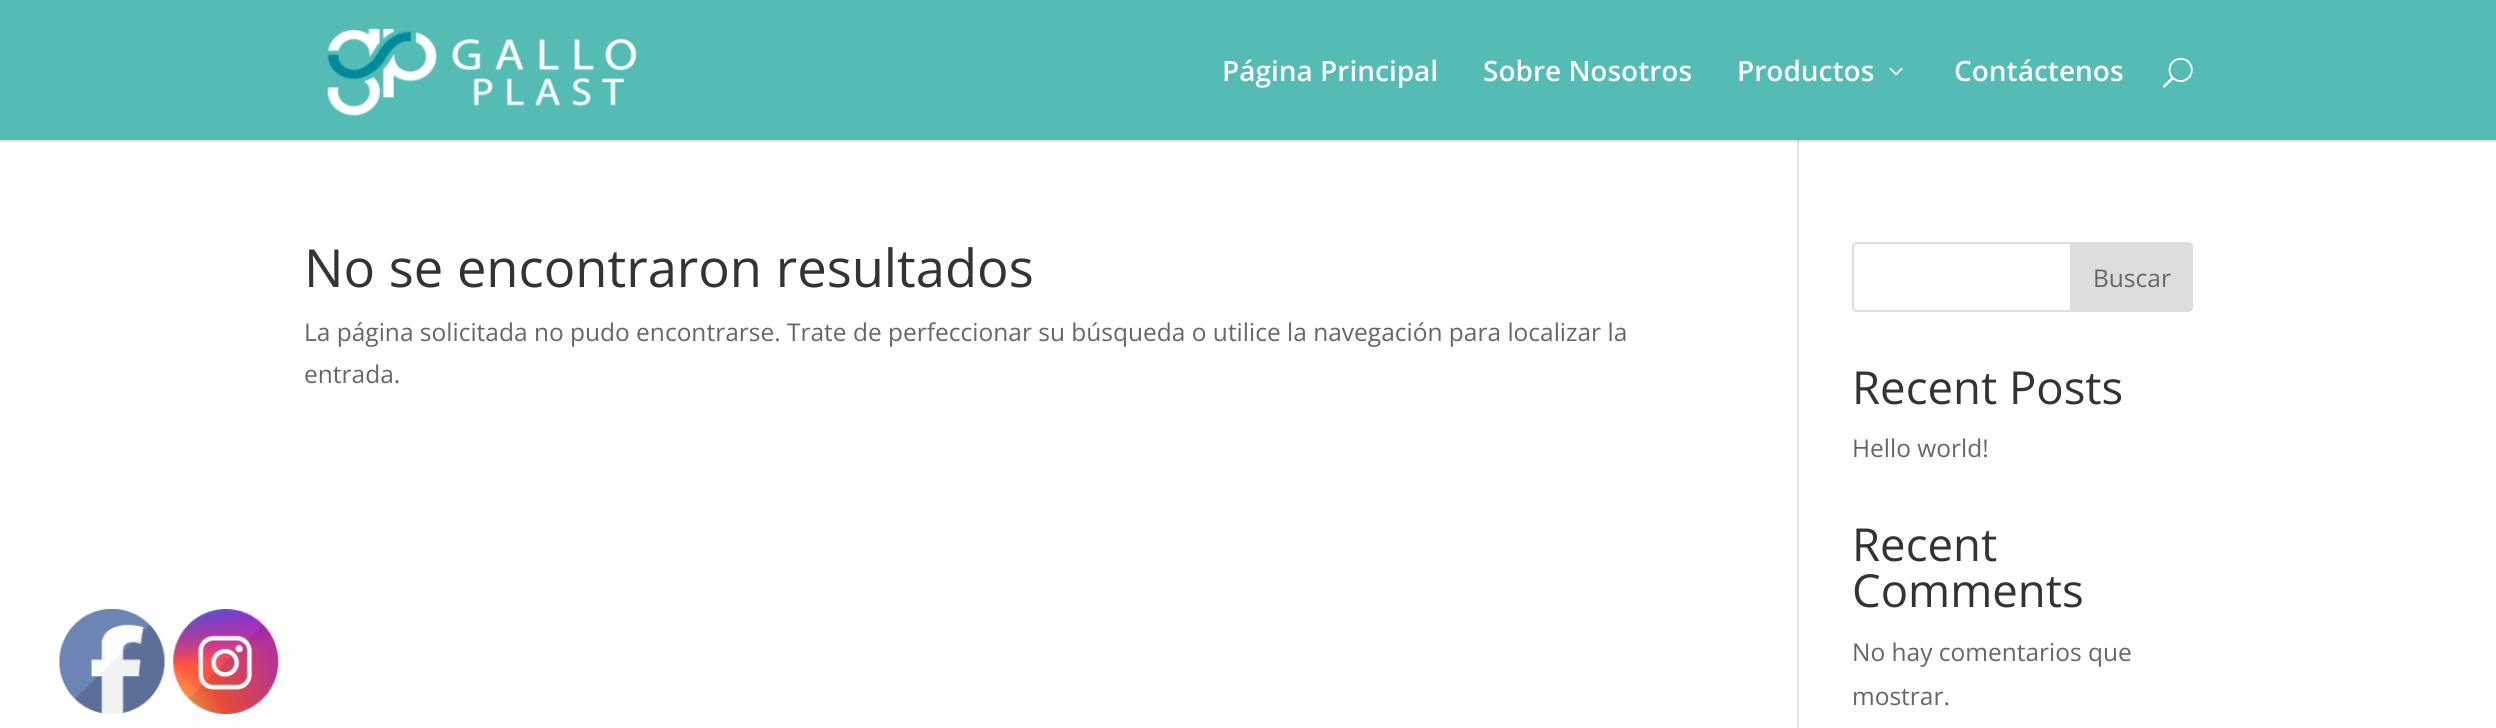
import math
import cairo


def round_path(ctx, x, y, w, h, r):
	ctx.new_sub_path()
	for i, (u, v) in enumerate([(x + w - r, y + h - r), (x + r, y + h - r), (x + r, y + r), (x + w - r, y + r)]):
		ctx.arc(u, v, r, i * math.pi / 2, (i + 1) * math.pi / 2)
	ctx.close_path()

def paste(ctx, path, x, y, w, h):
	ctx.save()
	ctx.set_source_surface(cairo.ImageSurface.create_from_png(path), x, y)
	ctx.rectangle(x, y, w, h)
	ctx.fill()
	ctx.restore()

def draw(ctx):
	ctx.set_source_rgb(1, 1, 1)
	ctx.paint()
	ctx.set_source_rgb(0.902, 0.902, 0.902)
	ctx.rectangle(0, 140, 2496, 2)
	ctx.fill()
	paste(ctx, 'media/1.png', 59, 609, 106, 105)
	paste(ctx, 'media/2.png', 173, 609, 106, 105)
	ctx.set_source_rgb(0.329, 0.737, 0.71)
	ctx.rectangle(0, 0, 2496, 140)
	ctx.fill()
	paste(ctx, 'media/3.png', 327, 28, 310, 89)
	ctx.select_font_face('Open Sans SemiBold')
	ctx.set_font_size(28)
	ctx.set_source_rgb(1, 1, 1)
	for x, y, s in [
		(1222, 81, 'Página Principal'),
		(1483, 81, 'Sobre Nosotros'),
		(1737, 81, 'Productos'),
	]:
		ctx.move_to(x, y)
		ctx.show_text(s)
	paste(ctx, 'media/4.png', 1889, 67, 14, 9)
	ctx.move_to(1954, 81)
	ctx.show_text('Contáctenos')
	paste(ctx, 'media/5.png', 2162, 57, 31, 31)
	ctx.set_source_rgb(0.886, 0.886, 0.886)
	ctx.rectangle(1797, 140, 2, 588)
	ctx.fill()
	ctx.set_source_rgb(0.796, 0.796, 0.796)
	ctx.rectangle(1797, 140, 2, 2)
	ctx.fill()
	ctx.select_font_face('Open Sans')
	ctx.set_font_size(52.5)
	ctx.set_source_rgb(0.2, 0.2, 0.2)
	ctx.move_to(304, 287)
	ctx.show_text('No se encontraron resultados')
	ctx.set_font_size(24.5)
	ctx.set_source_rgb(0.4, 0.4, 0.4)
	ctx.move_to(304, 341)
	ctx.show_text('La página solicitada no pudo encontrarse. Trate de perfeccionar su búsqueda o utilice la navegación para localizar la')
	ctx.move_to(304, 383)
	ctx.show_text('entrada.')
	round_path(ctx, 1853, 243, 339, 68, 4)
	ctx.set_source_rgb(0.867, 0.867, 0.867)
	ctx.stroke()
	ctx.new_path()
	ctx.move_to(2071, 243)
	ctx.line_to(2188, 243)
	ctx.curve_to(2190, 243, 2192, 245, 2192, 247)
	ctx.line_to(2192, 307)
	ctx.curve_to(2192, 309, 2190, 311, 2188, 311)
	ctx.line_to(2071, 311)
	ctx.close_path()
	ctx.fill_preserve()
	ctx.stroke()
	ctx.set_source_rgb(0.4, 0.4, 0.4)
	ctx.move_to(2093, 287)
	ctx.show_text('Buscar')
	ctx.set_font_size(45.5)
	ctx.set_source_rgb(0.2, 0.2, 0.2)
	ctx.move_to(1852, 404)
	ctx.show_text('Recent Posts')
	ctx.set_font_size(24.5)
	ctx.set_source_rgb(0.4, 0.4, 0.4)
	ctx.move_to(1852, 457)
	ctx.show_text('Hello world!')
	ctx.set_font_size(45.5)
	ctx.set_source_rgb(0.2, 0.2, 0.2)
	ctx.move_to(1852, 561)
	ctx.show_text('Recent')
	ctx.move_to(1852, 607)
	ctx.show_text('Comments')
	ctx.set_font_size(24.5)
	ctx.set_source_rgb(0.4, 0.4, 0.4)
	ctx.move_to(1852, 661)
	ctx.show_text('No hay comentarios que')
	ctx.move_to(1852, 705)
	ctx.show_text('mostrar.')


surface = cairo.ImageSurface(cairo.FORMAT_RGB24, 2496, 728)
ctx = cairo.Context(surface)
options = cairo.FontOptions()
options.set_hint_metrics(cairo.HINT_METRICS_OFF)
options.set_hint_style(cairo.HINT_STYLE_NONE)
ctx.set_font_options(options)
ctx.set_miter_limit(4)
draw(ctx)
surface.write_to_png('image.png')
